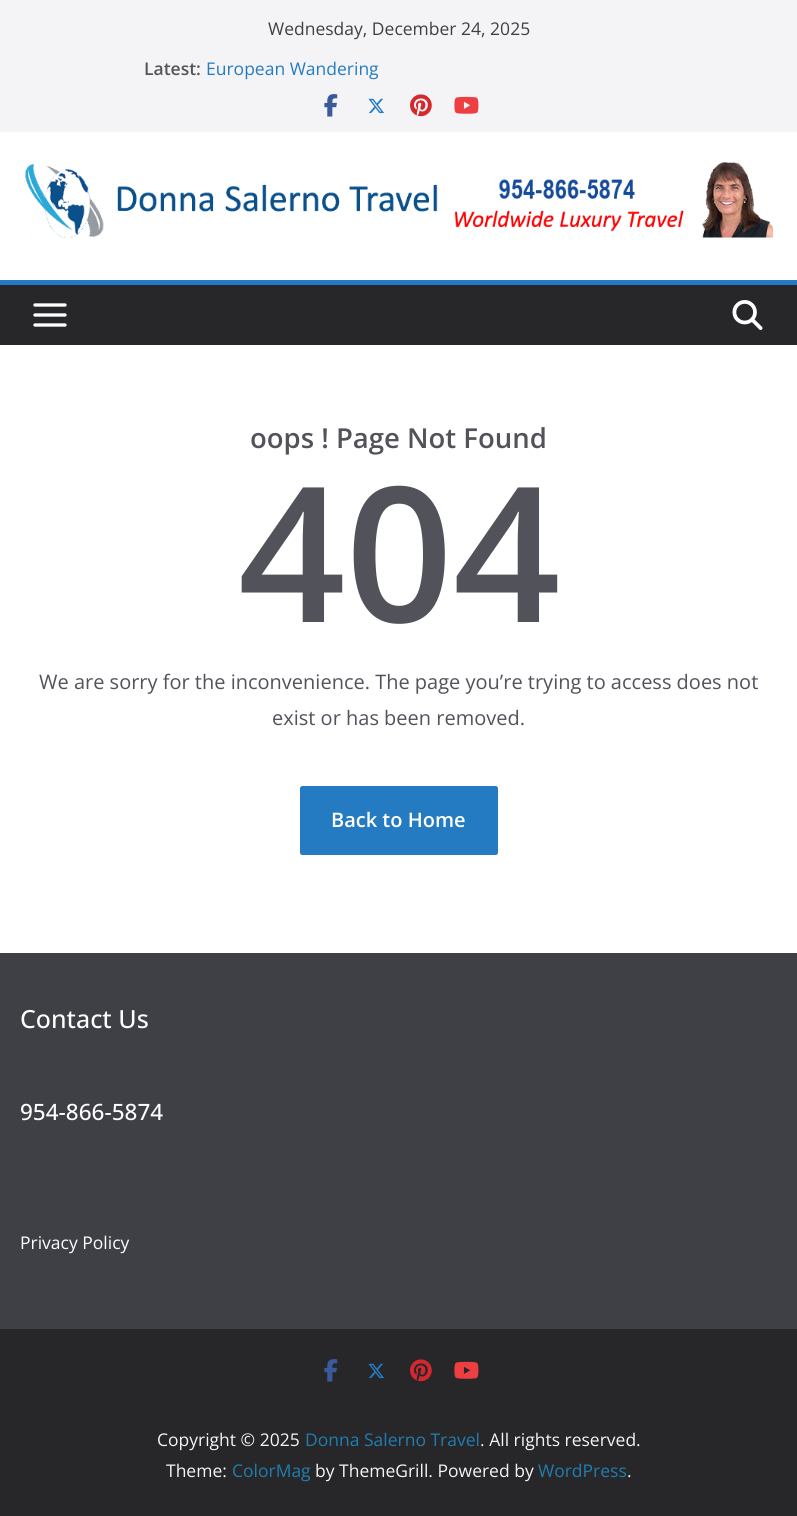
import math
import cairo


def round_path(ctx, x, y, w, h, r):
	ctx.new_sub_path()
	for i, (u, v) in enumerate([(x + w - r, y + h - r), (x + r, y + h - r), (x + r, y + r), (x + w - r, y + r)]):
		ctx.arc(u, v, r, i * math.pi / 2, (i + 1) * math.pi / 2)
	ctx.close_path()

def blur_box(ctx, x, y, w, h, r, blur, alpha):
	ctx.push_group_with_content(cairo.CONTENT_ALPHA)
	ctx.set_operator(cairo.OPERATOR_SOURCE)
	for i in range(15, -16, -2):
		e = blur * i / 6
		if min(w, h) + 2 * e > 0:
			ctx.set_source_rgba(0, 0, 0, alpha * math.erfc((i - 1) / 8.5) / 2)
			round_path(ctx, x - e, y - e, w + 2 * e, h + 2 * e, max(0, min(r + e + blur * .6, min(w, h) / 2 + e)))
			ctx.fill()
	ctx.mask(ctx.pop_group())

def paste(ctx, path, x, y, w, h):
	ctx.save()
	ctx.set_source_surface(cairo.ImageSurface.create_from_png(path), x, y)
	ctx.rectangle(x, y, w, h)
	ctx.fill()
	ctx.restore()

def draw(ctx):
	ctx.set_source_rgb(1, 1, 1)
	ctx.paint()
	ctx.set_source_rgb(0, 0, 0)
	blur_box(ctx, 0, 0, 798, 131, 0, 1, 0.1)
	ctx.set_source_rgb(0.957, 0.957, 0.961)
	ctx.rectangle(0, 0, 797, 131)
	ctx.fill()
	ctx.select_font_face('Open Sans')
	ctx.set_font_size(17.5)
	ctx.set_source_rgb(0.247, 0.247, 0.275)
	ctx.move_to(268, 35)
	ctx.show_text('Wednesday, December 24, 2025')
	ctx.select_font_face('Open Sans SemiBold')
	ctx.set_source_rgb(0.333, 0.333, 0.333)
	ctx.move_to(144, 75)
	ctx.show_text('Latest:')
	ctx.select_font_face('Open Sans')
	ctx.set_source_rgb(0.145, 0.482, 0.757)
	ctx.move_to(206, 75)
	ctx.show_text('European Wandering')
	paste(ctx, 'media/1.png', 324, 94, 14, 23)
	paste(ctx, 'media/2.png', 368, 98, 16, 16)
	paste(ctx, 'media/3.png', 410, 94, 22, 23)
	paste(ctx, 'media/4.png', 454, 96, 25, 18)
	paste(ctx, 'media/5.png', 25, 161, 748, 77)
	ctx.set_source_rgb(0.153, 0.153, 0.165)
	ctx.rectangle(0, 285, 797, 60)
	ctx.fill()
	ctx.set_source_rgb(0.145, 0.482, 0.757)
	ctx.rectangle(0, 280, 797, 5)
	ctx.fill()
	paste(ctx, 'media/6.png', 33, 303, 34, 24)
	paste(ctx, 'media/7.png', 732, 300, 31, 30)
	ctx.select_font_face('Open Sans SemiBold')
	ctx.set_font_size(27.5)
	ctx.set_source_rgb(0.322, 0.322, 0.357)
	ctx.move_to(250, 448)
	ctx.show_text('oops ! Page Not Found')
	ctx.set_font_size(188)
	ctx.move_to(238, 622)
	ctx.show_text('404')
	ctx.select_font_face('Open Sans')
	ctx.set_font_size(20)
	ctx.move_to(39, 689)
	ctx.show_text('We are sorry for the inconvenience. The page you’re trying to access does not')
	ctx.move_to(272, 725)
	ctx.show_text('exist or has been removed.')
	ctx.set_source_rgb(0.145, 0.482, 0.757)
	round_path(ctx, 300.5, 786.5, 197, 68, 2)
	ctx.fill_preserve()
	ctx.set_line_width(1)
	ctx.stroke()
	ctx.select_font_face('Open Sans SemiBold')
	ctx.set_source_rgb(1, 1, 1)
	ctx.move_to(331, 827)
	ctx.show_text('Back to Home')
	ctx.set_source_rgb(0.247, 0.247, 0.275)
	ctx.rectangle(0, 953, 797, 376)
	ctx.fill()
	ctx.select_font_face('Open Sans Medium')
	ctx.set_font_size(25)
	ctx.set_source_rgb(1, 1, 1)
	ctx.move_to(20, 1028)
	ctx.show_text('Contact Us')
	ctx.set_font_size(22.5)
	ctx.move_to(20, 1120)
	ctx.show_text('954-866-5874')
	ctx.select_font_face('Open Sans')
	ctx.set_font_size(17.5)
	ctx.move_to(20, 1249)
	ctx.show_text('Privacy Policy')
	ctx.set_source_rgb(0.153, 0.153, 0.165)
	ctx.rectangle(0, 1329, 797, 187)
	ctx.fill()
	paste(ctx, 'media/8.png', 324, 1359, 14, 23)
	paste(ctx, 'media/9.png', 368, 1363, 16, 16)
	paste(ctx, 'media/10.png', 410, 1359, 22, 23)
	paste(ctx, 'media/11.png', 454, 1361, 25, 18)
	ctx.set_source_rgb(0.957, 0.957, 0.961)
	ctx.move_to(157, 1446)
	ctx.show_text('Copyright © 2025')
	ctx.set_source_rgb(0.125, 0.49, 0.686)
	ctx.move_to(305, 1446)
	ctx.show_text('Donna Salerno Travel')
	ctx.set_source_rgb(0.957, 0.957, 0.961)
	ctx.move_to(480, 1446)
	ctx.show_text('. All rights reserved.')
	ctx.move_to(166, 1477)
	ctx.show_text('Theme:')
	ctx.set_source_rgb(0.125, 0.49, 0.686)
	ctx.move_to(232, 1477)
	ctx.show_text('ColorMag')
	ctx.set_source_rgb(0.957, 0.957, 0.961)
	ctx.move_to(315, 1477)
	ctx.show_text('by ThemeGrill. Powered by')
	ctx.set_source_rgb(0.125, 0.49, 0.686)
	ctx.move_to(538, 1477)
	ctx.show_text('WordPress')
	ctx.set_source_rgb(0.957, 0.957, 0.961)
	ctx.move_to(627, 1477)
	ctx.show_text('.')


surface = cairo.ImageSurface(cairo.FORMAT_RGB24, 797, 1516)
ctx = cairo.Context(surface)
options = cairo.FontOptions()
options.set_hint_metrics(cairo.HINT_METRICS_OFF)
options.set_hint_style(cairo.HINT_STYLE_NONE)
ctx.set_font_options(options)
ctx.set_miter_limit(4)
draw(ctx)
surface.write_to_png('image.png')
